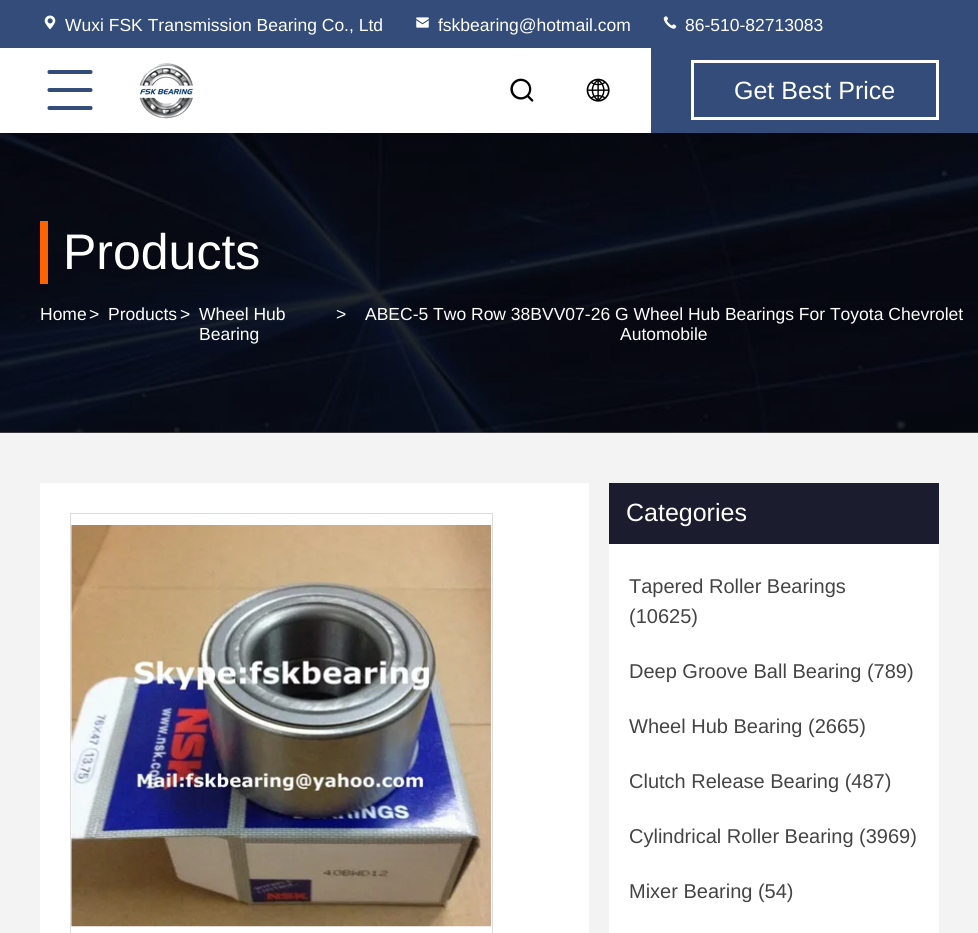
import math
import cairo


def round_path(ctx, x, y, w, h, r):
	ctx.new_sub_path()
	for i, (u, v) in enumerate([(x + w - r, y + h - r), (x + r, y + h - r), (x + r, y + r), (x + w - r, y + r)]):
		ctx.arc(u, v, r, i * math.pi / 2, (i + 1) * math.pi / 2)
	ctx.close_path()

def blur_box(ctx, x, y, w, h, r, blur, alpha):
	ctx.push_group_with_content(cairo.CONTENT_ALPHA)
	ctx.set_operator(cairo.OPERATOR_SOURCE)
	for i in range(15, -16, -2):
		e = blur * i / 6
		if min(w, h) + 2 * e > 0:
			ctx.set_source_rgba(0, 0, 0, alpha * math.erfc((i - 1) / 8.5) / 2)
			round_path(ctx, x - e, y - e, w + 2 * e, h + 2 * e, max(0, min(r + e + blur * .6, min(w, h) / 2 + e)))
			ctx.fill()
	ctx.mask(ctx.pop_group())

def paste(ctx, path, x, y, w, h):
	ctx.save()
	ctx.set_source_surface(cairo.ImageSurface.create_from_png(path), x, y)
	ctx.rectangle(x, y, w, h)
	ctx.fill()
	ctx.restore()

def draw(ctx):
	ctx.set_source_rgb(0.953, 0.953, 0.953)
	ctx.paint()
	ctx.set_source_rgb(0.286, 0.286, 0.286)
	ctx.rectangle(0, 432, 978, 1)
	ctx.fill()
	paste(ctx, 'media/8.png', 0, 133, 978, 300)
	ctx.set_source_rgb(0, 0, 0)
	blur_box(ctx, 0, 3, 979, 132, 0, 4, 0.15)
	ctx.set_source_rgb(0.204, 0.298, 0.475)
	ctx.rectangle(0, 0, 978, 48)
	ctx.fill()
	paste(ctx, 'media/1.png', 44, 15, 12, 15)
	ctx.select_font_face('Liberation Sans')
	ctx.set_font_size(17.5)
	ctx.set_source_rgb(1, 1, 1)
	ctx.move_to(65, 31)
	ctx.show_text('Wuxi FSK Transmission Bearing Co., Ltd')
	paste(ctx, 'media/2.png', 416, 17, 13, 11)
	ctx.move_to(438, 31)
	ctx.show_text('fskbearing@hotmail.com')
	paste(ctx, 'media/3.png', 663, 16, 14, 13)
	ctx.move_to(685, 31)
	ctx.show_text('86-510-82713083')
	ctx.rectangle(0, 48, 651, 85)
	ctx.fill()
	paste(ctx, 'media/4.png', 47, 70, 46, 40)
	paste(ctx, 'media/5.png', 139, 63, 54, 56)
	paste(ctx, 'media/6.png', 510, 78, 24, 24)
	paste(ctx, 'media/7.png', 586, 78, 24, 24)
	ctx.set_source_rgb(0.204, 0.298, 0.475)
	ctx.rectangle(651, 48, 327, 85)
	ctx.fill()
	ctx.rectangle(692.5, 61.5, 245, 57)
	ctx.set_source_rgb(1, 1, 1)
	ctx.set_line_width(3)
	ctx.stroke()
	ctx.set_font_size(25)
	ctx.move_to(734, 99)
	ctx.show_text('Get Best Price')
	ctx.set_source_rgb(1, 0.384, 0)
	ctx.rectangle(40, 221, 8, 63)
	ctx.fill()
	ctx.set_font_size(50)
	ctx.set_source_rgb(1, 1, 1)
	ctx.move_to(63, 269)
	ctx.show_text('Products')
	ctx.set_font_size(17.5)
	for x, y, s in [
		(40, 320, 'Home'),
		(89, 320, '>'),
		(108, 320, 'Products'),
		(180, 320, '>'),
		(199, 320, 'Wheel Hub'),
		(199, 340, 'Bearing'),
		(336, 320, '>'),
		(365, 320, 'ABEC-5 Two Row 38BVV07-26 G Wheel Hub Bearings For Toyota Chevrolet'),
		(620, 340, 'Automobile'),
	]:
		ctx.move_to(x, y)
		ctx.show_text(s)
	ctx.rectangle(40, 483, 549, 450)
	ctx.fill()
	ctx.rectangle(70.5, 513.5, 422, 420)
	ctx.set_source_rgb(0.867, 0.867, 0.867)
	ctx.set_line_width(1)
	ctx.stroke()
	paste(ctx, 'media/9.png', 71, 525, 421, 402)
	ctx.set_source_rgb(0.106, 0.114, 0.18)
	ctx.rectangle(609, 483, 330, 61)
	ctx.fill()
	ctx.set_font_size(25)
	ctx.set_source_rgb(1, 1, 1)
	ctx.move_to(626, 521)
	ctx.show_text('Categories')
	ctx.rectangle(609, 544, 330, 389)
	ctx.fill()
	ctx.set_font_size(20)
	ctx.set_source_rgb(0.267, 0.267, 0.267)
	for x, y, s in [
		(629, 593, 'Tapered Roller Bearings'),
		(629, 623, '(10625)'),
		(629, 678, 'Deep Groove Ball Bearing (789)'),
		(629, 733, 'Wheel Hub Bearing (2665)'),
		(629, 788, 'Clutch Release Bearing (487)'),
		(629, 843, 'Cylindrical Roller Bearing (3969)'),
		(629, 898, 'Mixer Bearing (54)'),
	]:
		ctx.move_to(x, y)
		ctx.show_text(s)


surface = cairo.ImageSurface(cairo.FORMAT_RGB24, 978, 933)
ctx = cairo.Context(surface)
options = cairo.FontOptions()
options.set_hint_metrics(cairo.HINT_METRICS_OFF)
options.set_hint_style(cairo.HINT_STYLE_NONE)
ctx.set_font_options(options)
ctx.set_miter_limit(4)
draw(ctx)
surface.write_to_png('image.png')
